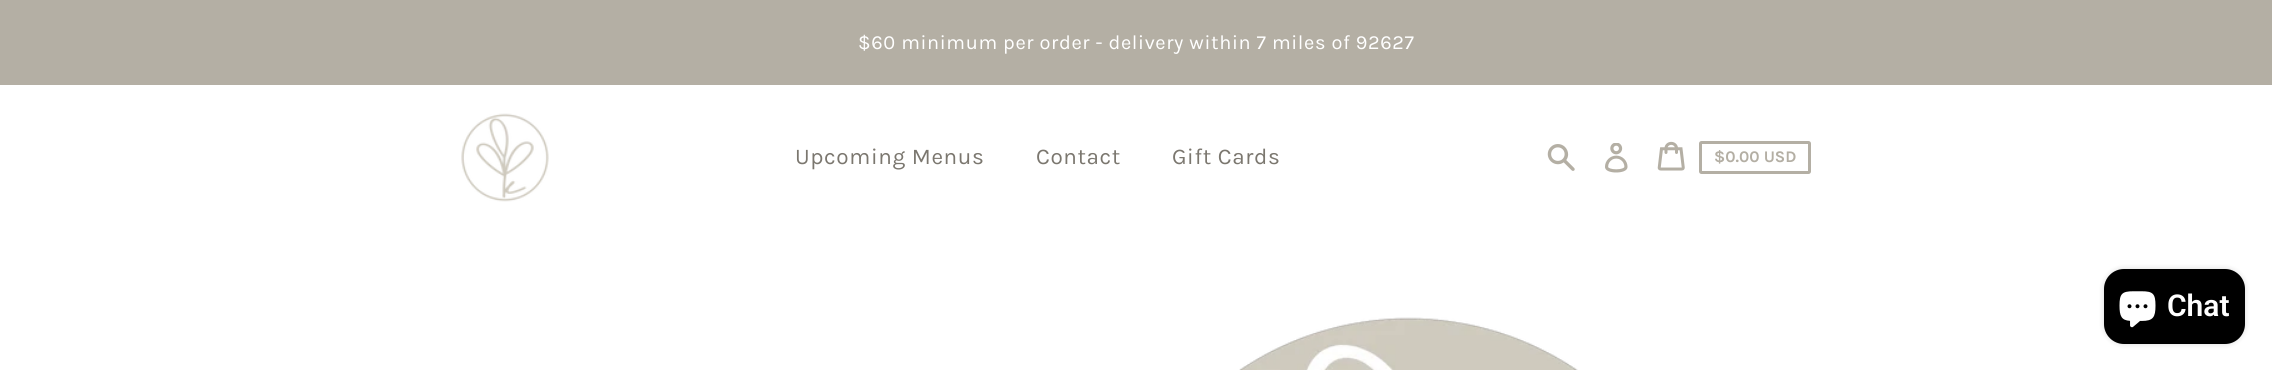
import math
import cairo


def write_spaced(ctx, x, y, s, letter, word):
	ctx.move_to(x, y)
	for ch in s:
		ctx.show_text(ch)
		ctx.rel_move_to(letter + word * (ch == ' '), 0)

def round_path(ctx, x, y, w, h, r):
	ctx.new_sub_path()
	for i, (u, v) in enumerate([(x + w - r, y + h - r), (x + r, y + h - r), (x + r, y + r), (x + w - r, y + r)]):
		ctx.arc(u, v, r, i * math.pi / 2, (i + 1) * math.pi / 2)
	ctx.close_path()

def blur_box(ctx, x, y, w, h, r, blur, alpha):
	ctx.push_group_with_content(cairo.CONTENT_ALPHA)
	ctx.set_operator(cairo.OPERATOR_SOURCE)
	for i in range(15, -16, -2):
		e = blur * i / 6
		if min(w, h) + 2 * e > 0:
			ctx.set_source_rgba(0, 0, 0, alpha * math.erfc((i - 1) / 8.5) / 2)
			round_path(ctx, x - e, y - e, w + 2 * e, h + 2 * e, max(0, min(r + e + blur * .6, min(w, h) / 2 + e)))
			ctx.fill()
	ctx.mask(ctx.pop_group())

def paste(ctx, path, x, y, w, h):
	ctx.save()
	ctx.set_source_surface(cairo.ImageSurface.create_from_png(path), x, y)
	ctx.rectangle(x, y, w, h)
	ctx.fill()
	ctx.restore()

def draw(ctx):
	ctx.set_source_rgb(1, 1, 1)
	ctx.paint()
	ctx.set_source_rgb(0.706, 0.686, 0.643)
	ctx.rectangle(0, 0, 2272, 85)
	ctx.fill()
	ctx.select_font_face('Karla')
	ctx.set_font_size(20)
	ctx.set_source_rgb(1, 1, 1)
	write_spaced(ctx, 858, 49, '$60 minimum per order - delivery within 7 miles of 92627', 0.62, 0)
	paste(ctx, 'media/1.png', 461, 113, 88, 89)
	ctx.set_font_size(22.5)
	ctx.set_source_rgb(0.482, 0.467, 0.435)
	for x, y, s in [
		(795, 164, 'Upcoming Menus'),
		(1036, 164, 'Contact'),
		(1172, 164, 'Gift Cards'),
	]:
		write_spaced(ctx, x, y, s, 0.62, 0)
	paste(ctx, 'media/2.png', 1547, 144, 28, 27)
	paste(ctx, 'media/3.png', 1605, 143, 23, 30)
	paste(ctx, 'media/4.png', 1657, 141, 28, 30)
	round_path(ctx, 1700.5, 142.5, 109, 30, 1)
	ctx.set_source_rgb(0.706, 0.686, 0.643)
	ctx.set_line_width(3)
	ctx.stroke()
	ctx.select_font_face('Karla', cairo.FONT_SLANT_NORMAL, cairo.FONT_WEIGHT_BOLD)
	ctx.set_font_size(16.25)
	ctx.move_to(1714, 162)
	ctx.show_text('$0.00 USD')
	ctx.set_source_rgb(0, 0, 0)
	blur_box(ctx, 2104, 269, 141, 75, 20, 3, 0.15)
	ctx.set_source_rgb(0, 0, 0)
	round_path(ctx, 2104, 269, 141, 75, 20)
	ctx.fill()
	paste(ctx, 'media/5.png', 2119, 291, 37, 37)
	ctx.select_font_face('Roboto SemiBold')
	ctx.set_font_size(30)
	ctx.set_source_rgb(1, 1, 1)
	ctx.move_to(2167, 316)
	ctx.show_text('Chat')
	paste(ctx, 'media/6.png', 1239, 317, 339, 53)


surface = cairo.ImageSurface(cairo.FORMAT_RGB24, 2272, 370)
ctx = cairo.Context(surface)
options = cairo.FontOptions()
options.set_hint_metrics(cairo.HINT_METRICS_OFF)
options.set_hint_style(cairo.HINT_STYLE_NONE)
ctx.set_font_options(options)
ctx.set_miter_limit(4)
draw(ctx)
surface.write_to_png('image.png')
